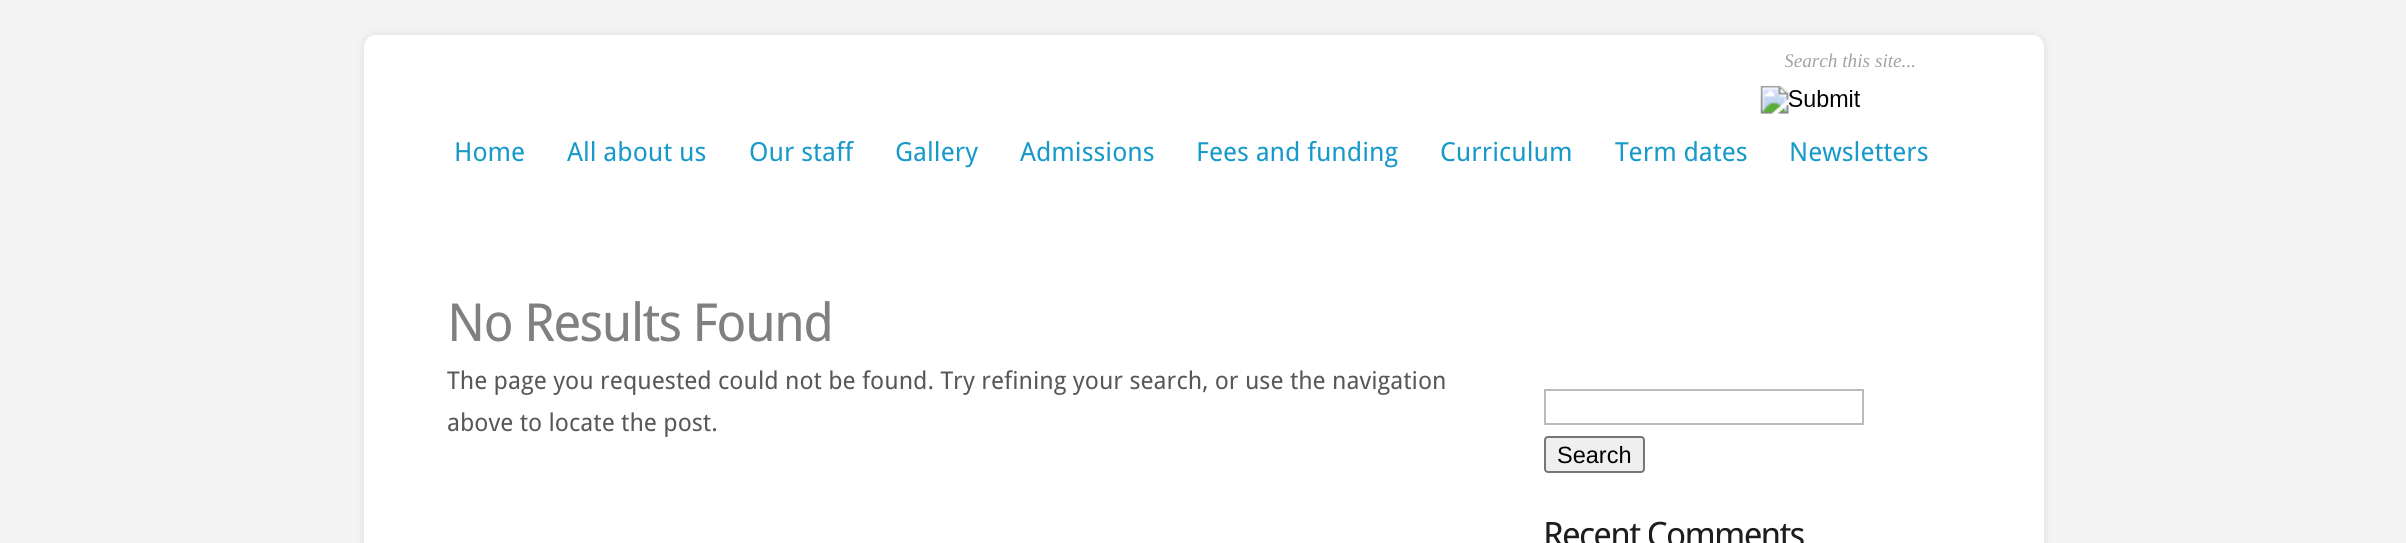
import math
import cairo


def write_spaced(ctx, x, y, s, letter, word):
	ctx.move_to(x, y)
	for ch in s:
		ctx.show_text(ch)
		ctx.rel_move_to(letter + word * (ch == ' '), 0)

def round_path(ctx, x, y, w, h, r):
	ctx.new_sub_path()
	for i, (u, v) in enumerate([(x + w - r, y + h - r), (x + r, y + h - r), (x + r, y + r), (x + w - r, y + r)]):
		ctx.arc(u, v, r, i * math.pi / 2, (i + 1) * math.pi / 2)
	ctx.close_path()

def blur_box(ctx, x, y, w, h, r, blur, alpha):
	ctx.push_group_with_content(cairo.CONTENT_ALPHA)
	ctx.set_operator(cairo.OPERATOR_SOURCE)
	for i in range(15, -16, -2):
		e = blur * i / 6
		if min(w, h) + 2 * e > 0:
			ctx.set_source_rgba(0, 0, 0, alpha * math.erfc((i - 1) / 8.5) / 2)
			round_path(ctx, x - e, y - e, w + 2 * e, h + 2 * e, max(0, min(r + e + blur * .6, min(w, h) / 2 + e)))
			ctx.fill()
	ctx.mask(ctx.pop_group())

def paste(ctx, path, x, y, w, h):
	ctx.save()
	ctx.set_source_surface(cairo.ImageSurface.create_from_png(path), x, y)
	ctx.rectangle(x, y, w, h)
	ctx.fill()
	ctx.restore()

def draw(ctx):
	ctx.set_source_rgb(0.957, 0.957, 0.957)
	ctx.paint()
	ctx.set_source_rgb(0, 0, 0)
	blur_box(ctx, 364, 35, 1680, 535, 12, 5, 0.1)
	ctx.set_source_rgb(1, 1, 1)
	round_path(ctx, 364, 35, 1680, 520, 12)
	ctx.fill()
	ctx.save()
	ctx.rectangle(1785, 49, 200, 21)
	ctx.clip()
	ctx.select_font_face('Liberation Serif', cairo.FONT_SLANT_ITALIC)
	ctx.set_font_size(19.25)
	ctx.set_source_rgb(0.639, 0.639, 0.639)
	ctx.move_to(1784, 67)
	ctx.show_text('Search this site...')
	ctx.restore()
	paste(ctx, 'media/1.png', 1760, 85, 100, 29)
	ctx.select_font_face('Droid Sans')
	ctx.set_font_size(26.25)
	ctx.set_source_rgb(0.09, 0.6, 0.792)
	for x, y, s in [
		(454, 161, 'Home'),
		(567, 161, 'All about us'),
		(749, 161, 'Our staff'),
		(895, 161, 'Gallery'),
		(1020, 161, 'Admissions'),
		(1196, 161, 'Fees and funding'),
		(1440, 161, 'Curriculum'),
		(1615, 161, 'Term dates'),
		(1789, 161, 'Newsletters'),
	]:
		ctx.move_to(x, y)
		ctx.show_text(s)
	ctx.set_font_size(52.5)
	ctx.set_source_rgb(0.502, 0.502, 0.502)
	write_spaced(ctx, 447, 341, 'No Results Found', -1.75, 0)
	ctx.set_font_size(24.5)
	ctx.set_source_rgb(0.345, 0.345, 0.345)
	ctx.move_to(447, 389)
	ctx.show_text('The page you requested could not be found. Try refining your search, or use the navigation')
	ctx.move_to(447, 431)
	ctx.show_text('above to locate the post.')
	ctx.rectangle(1545, 390, 318, 34)
	ctx.set_source_rgb(0.733, 0.733, 0.733)
	ctx.stroke()
	ctx.set_source_rgb(0.937, 0.937, 0.937)
	round_path(ctx, 1545, 437, 99, 35, 3)
	ctx.fill_preserve()
	ctx.set_source_rgb(0.463, 0.463, 0.463)
	ctx.stroke()
	ctx.select_font_face('Liberation Sans')
	ctx.set_font_size(23.5)
	ctx.set_source_rgb(0, 0, 0)
	ctx.move_to(1557, 463)
	ctx.show_text('Search')
	ctx.select_font_face('Droid Sans')
	ctx.set_font_size(35)
	ctx.set_source_rgb(0.114, 0.114, 0.114)
	write_spaced(ctx, 1543, 547, 'Recent Comments', -1.75, 0)


surface = cairo.ImageSurface(cairo.FORMAT_RGB24, 2406, 543)
ctx = cairo.Context(surface)
options = cairo.FontOptions()
options.set_hint_metrics(cairo.HINT_METRICS_OFF)
options.set_hint_style(cairo.HINT_STYLE_NONE)
ctx.set_font_options(options)
ctx.set_miter_limit(4)
draw(ctx)
surface.write_to_png('image.png')
